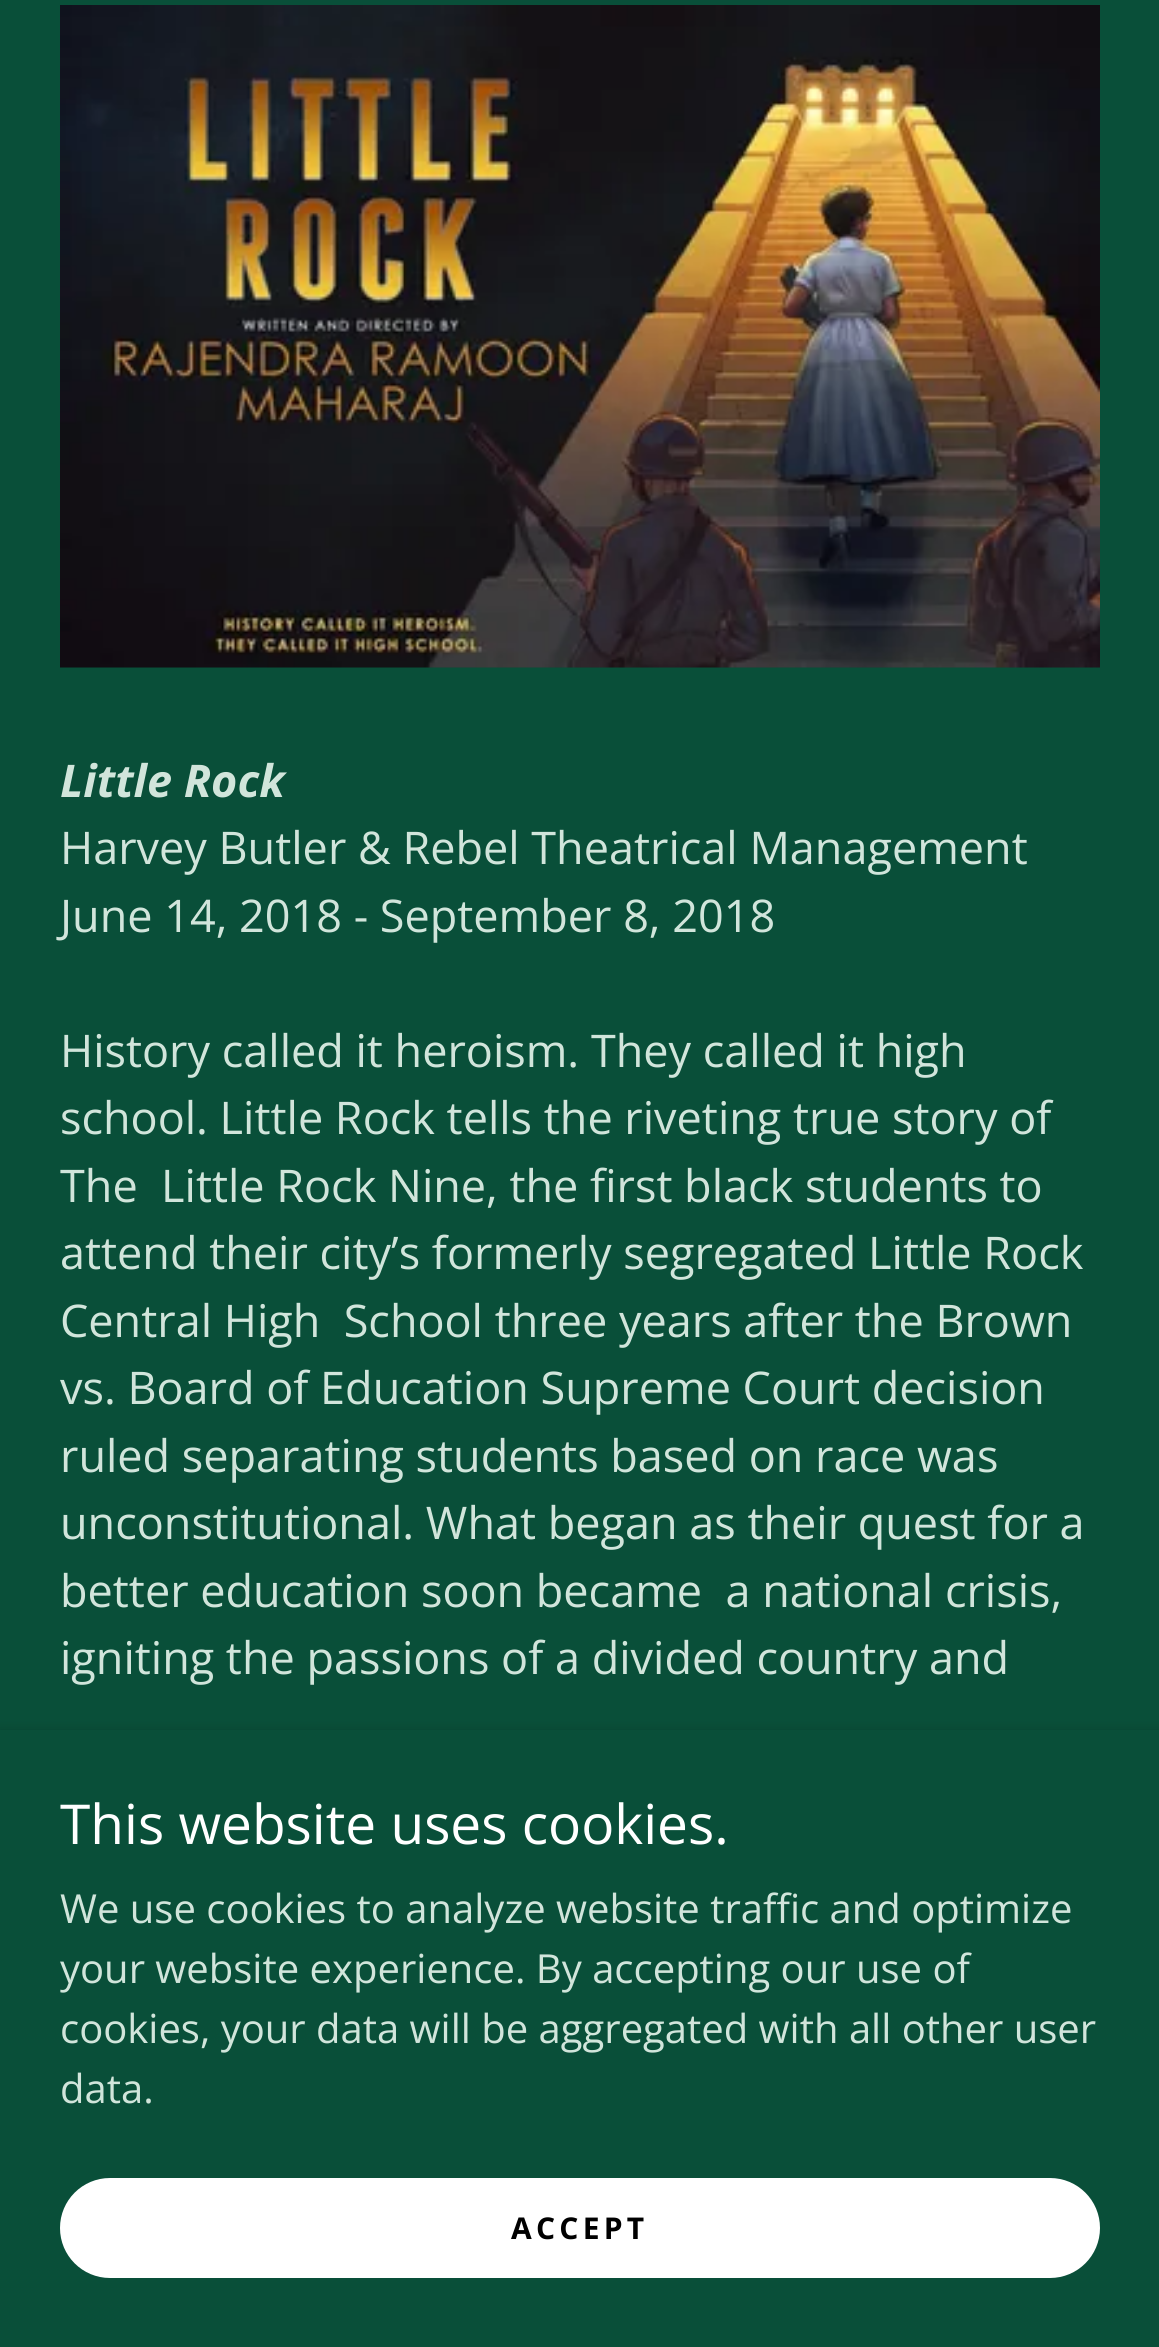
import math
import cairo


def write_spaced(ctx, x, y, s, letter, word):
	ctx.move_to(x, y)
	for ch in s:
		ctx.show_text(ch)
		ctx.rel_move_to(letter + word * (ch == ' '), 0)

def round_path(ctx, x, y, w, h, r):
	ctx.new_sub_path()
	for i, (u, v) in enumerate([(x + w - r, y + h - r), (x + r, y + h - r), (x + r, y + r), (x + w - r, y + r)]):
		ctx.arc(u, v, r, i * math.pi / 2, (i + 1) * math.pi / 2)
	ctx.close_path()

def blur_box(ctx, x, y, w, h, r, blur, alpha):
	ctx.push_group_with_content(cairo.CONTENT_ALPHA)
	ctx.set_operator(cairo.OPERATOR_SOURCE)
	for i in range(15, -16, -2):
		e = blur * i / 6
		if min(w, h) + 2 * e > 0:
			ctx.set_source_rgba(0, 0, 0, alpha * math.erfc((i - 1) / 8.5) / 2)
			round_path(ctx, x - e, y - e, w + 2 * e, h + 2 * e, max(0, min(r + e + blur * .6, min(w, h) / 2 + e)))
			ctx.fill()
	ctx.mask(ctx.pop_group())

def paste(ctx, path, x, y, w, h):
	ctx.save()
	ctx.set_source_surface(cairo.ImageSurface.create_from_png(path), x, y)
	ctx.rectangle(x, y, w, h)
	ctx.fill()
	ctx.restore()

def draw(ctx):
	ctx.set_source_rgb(0.039, 0.31, 0.224)
	ctx.paint()
	paste(ctx, 'media/1.png', 60, 5, 1040, 663)
	ctx.select_font_face('Open Sans', cairo.FONT_SLANT_ITALIC, cairo.FONT_WEIGHT_BOLD)
	ctx.set_font_size(45)
	ctx.set_source_rgb(0.82, 0.898, 0.859)
	ctx.move_to(60, 797)
	ctx.show_text('Little Rock')
	ctx.select_font_face('Open Sans')
	for x, y, s in [
		(60, 864, 'Harvey Butler & Rebel Theatrical Management'),
		(60, 932, 'June 14, 2018 - September 8, 2018'),
		(60, 1067, 'History called it heroism. They called it high'),
		(60, 1134, 'school. Little Rock tells the riveting true story of'),
		(60, 1202, 'The  Little Rock Nine, the first black students to'),
		(60, 1269, 'attend their city’s formerly segregated Little Rock'),
		(60, 1337, 'Central High  School three years after the Brown'),
		(60, 1404, 'vs. Board of Education Supreme Court decision'),
		(60, 1472, 'ruled separating students based on race was'),
		(60, 1539, 'unconstitutional. What began as their quest for a'),
		(60, 1607, 'better education soon became  a national crisis,'),
		(60, 1674, 'igniting the passions of a divided country and'),
	]:
		ctx.move_to(x, y)
		ctx.show_text(s)
	ctx.set_source_rgb(0, 0, 0)
	blur_box(ctx, 0, 1735, 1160, 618, 0, 7.5, 0.3)
	ctx.set_source_rgb(0.039, 0.31, 0.224)
	ctx.rectangle(0, 1730, 1159, 617)
	ctx.fill()
	ctx.set_font_size(55)
	ctx.set_source_rgb(1, 1, 1)
	ctx.move_to(60, 1844)
	ctx.show_text('This website uses cookies.')
	ctx.set_font_size(40)
	ctx.set_source_rgb(0.82, 0.898, 0.859)
	for x, y, s in [
		(60, 1923, 'We use cookies to analyze website traffic and optimize'),
		(60, 1983, 'your website experience. By accepting our use of'),
		(60, 2043, 'cookies, your data will be aggregated with all other user'),
		(60, 2103, 'data.'),
	]:
		ctx.move_to(x, y)
		ctx.show_text(s)
	ctx.set_source_rgb(1, 1, 1)
	round_path(ctx, 60, 2178, 1040, 100, 50)
	ctx.fill()
	ctx.select_font_face('Open Sans', cairo.FONT_SLANT_NORMAL, cairo.FONT_WEIGHT_BOLD)
	ctx.set_font_size(30)
	ctx.set_source_rgb(0, 0, 0)
	write_spaced(ctx, 511, 2239, 'ACCEPT', 4.25, 0)


surface = cairo.ImageSurface(cairo.FORMAT_RGB24, 1159, 2347)
ctx = cairo.Context(surface)
options = cairo.FontOptions()
options.set_hint_metrics(cairo.HINT_METRICS_OFF)
options.set_hint_style(cairo.HINT_STYLE_NONE)
ctx.set_font_options(options)
ctx.set_miter_limit(4)
draw(ctx)
surface.write_to_png('image.png')
